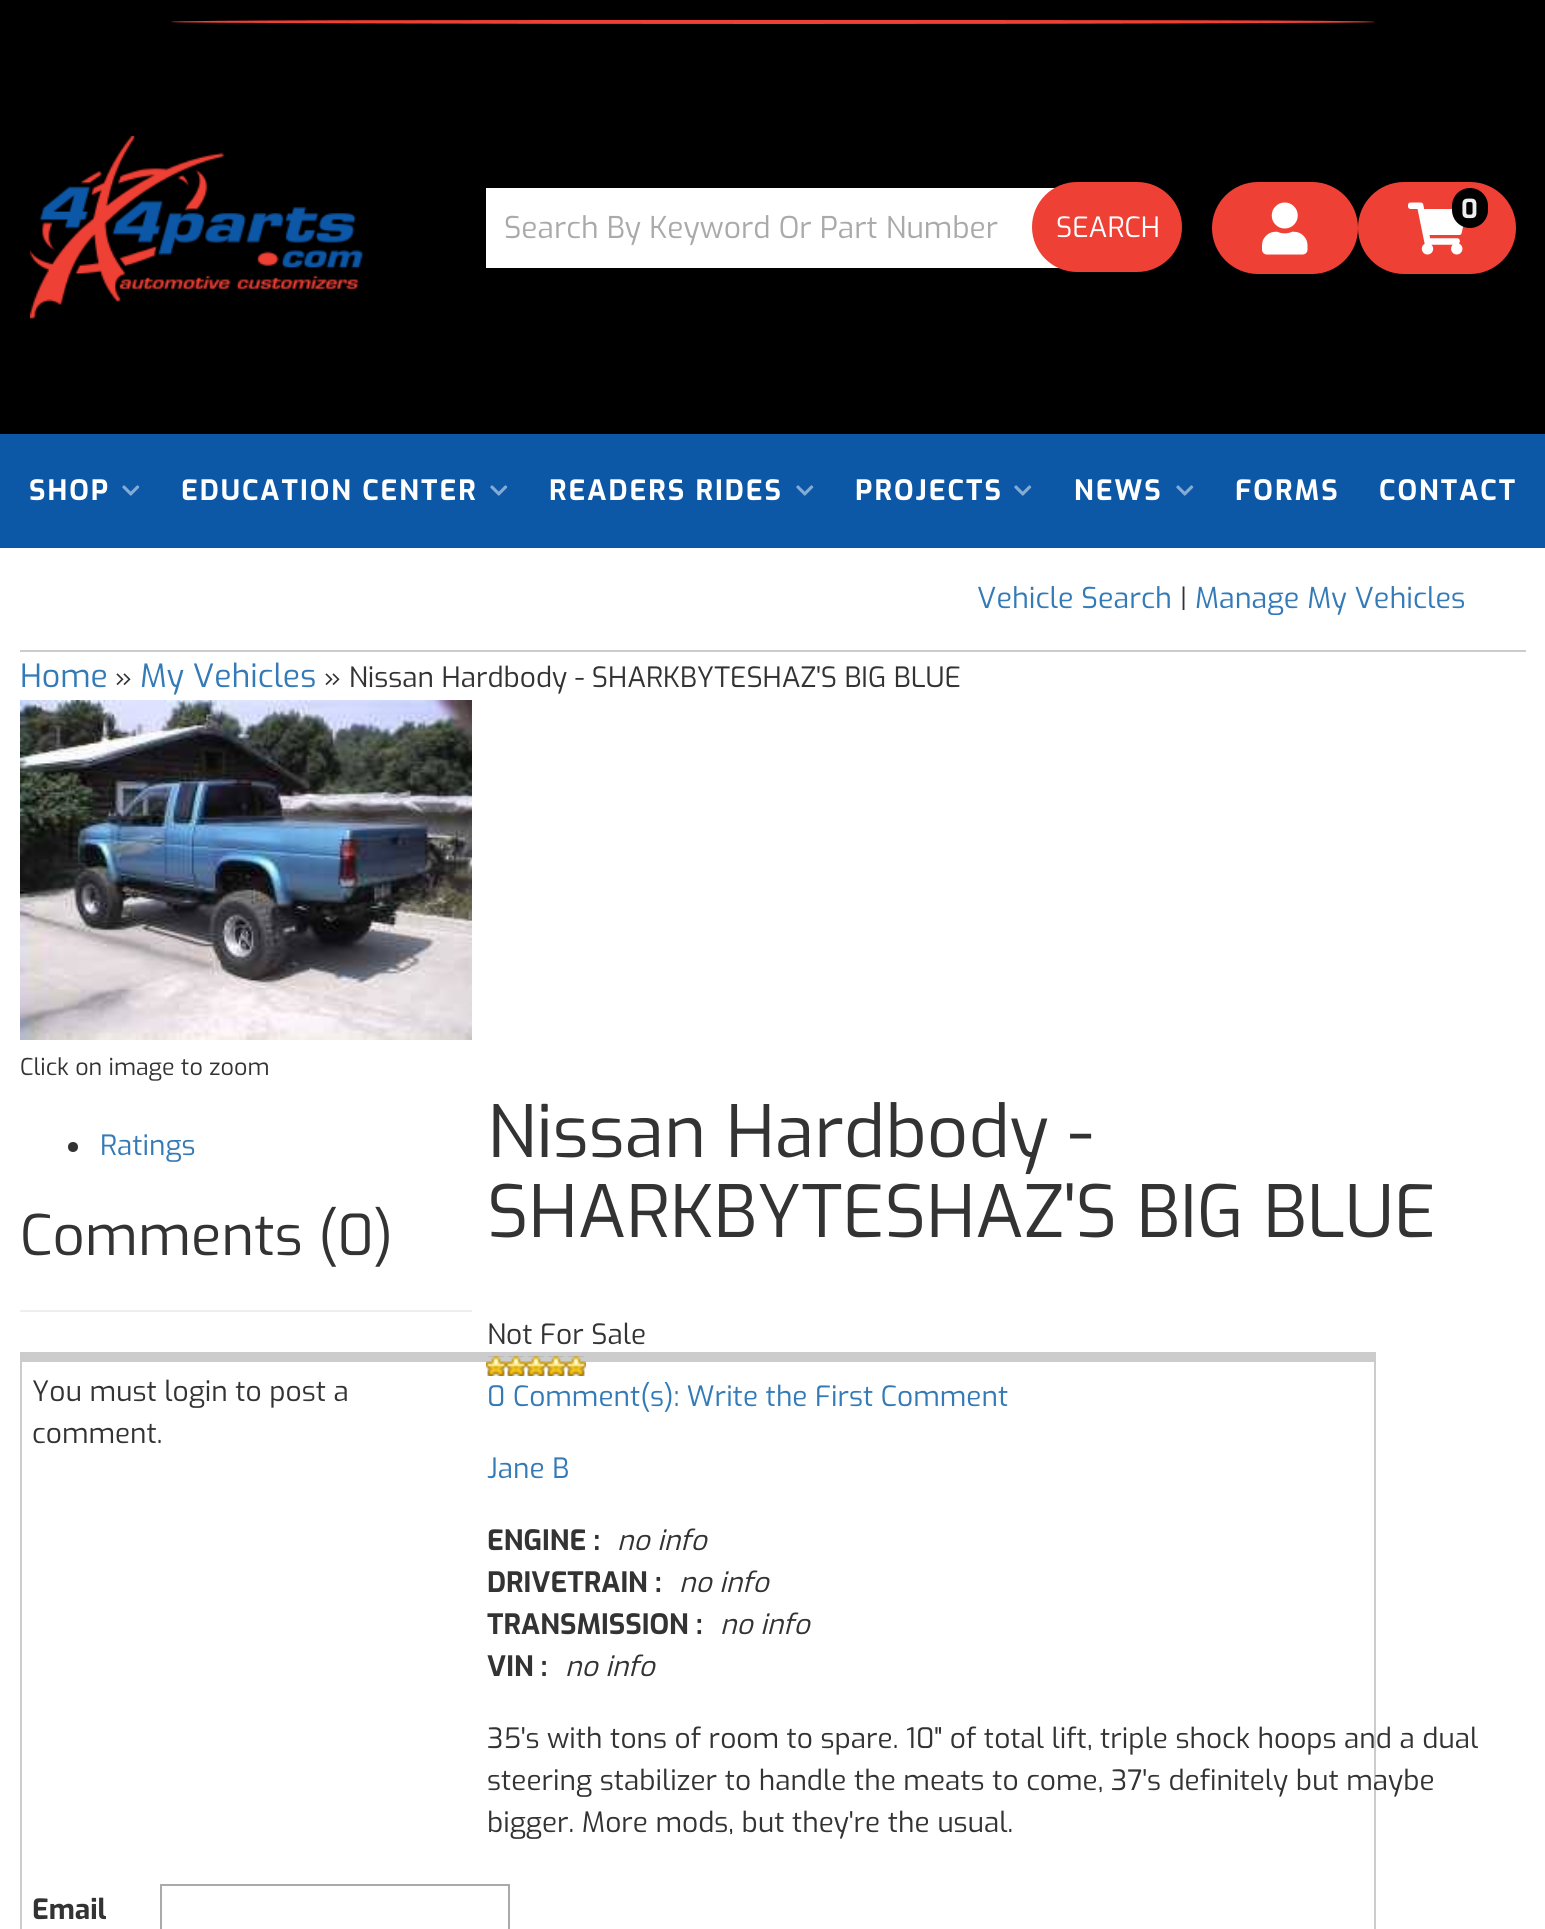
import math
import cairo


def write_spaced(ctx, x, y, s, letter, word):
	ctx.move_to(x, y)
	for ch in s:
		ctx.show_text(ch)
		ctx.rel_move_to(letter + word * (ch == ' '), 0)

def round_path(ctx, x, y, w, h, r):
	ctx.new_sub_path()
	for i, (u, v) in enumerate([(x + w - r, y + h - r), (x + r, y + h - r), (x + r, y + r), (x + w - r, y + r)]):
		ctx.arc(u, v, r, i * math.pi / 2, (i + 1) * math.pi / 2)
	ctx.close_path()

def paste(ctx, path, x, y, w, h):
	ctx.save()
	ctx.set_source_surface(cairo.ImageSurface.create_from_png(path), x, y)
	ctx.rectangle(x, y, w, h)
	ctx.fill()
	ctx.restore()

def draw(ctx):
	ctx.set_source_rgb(1, 1, 1)
	ctx.paint()
	ctx.set_source_rgb(0, 0, 0)
	ctx.rectangle(0, 0, 1545, 434)
	ctx.fill()
	ctx.set_source_rgb(0.937, 0.251, 0.208)
	ctx.new_path()
	ctx.move_to(767, 20)
	ctx.curve_to(1100, 20, 1372, 20, 1375, 22)
	ctx.curve_to(1379, 23, 1112, 24, 779, 24)
	ctx.curve_to(446, 24, 174, 23, 171, 22)
	ctx.curve_to(167, 20, 434, 20, 767, 20)
	ctx.close_path()
	ctx.fill()
	paste(ctx, 'media/1.png', 30, 136, 333, 183)
	round_path(ctx, 1212, 182, 146, 92, 46)
	ctx.fill()
	paste(ctx, 'media/2.png', 1262, 202, 46, 53)
	round_path(ctx, 1358, 182, 158, 92, 46)
	ctx.fill()
	paste(ctx, 'media/3.png', 1408, 202, 56, 53)
	ctx.set_source_rgb(0, 0, 0)
	round_path(ctx, 1452, 188, 36, 40, 18)
	ctx.fill()
	ctx.select_font_face('Exo', cairo.FONT_SLANT_NORMAL, cairo.FONT_WEIGHT_BOLD)
	ctx.set_font_size(26)
	ctx.set_source_rgb(0.933, 0.933, 0.933)
	ctx.move_to(1461, 218)
	ctx.show_text('0')
	ctx.set_source_rgb(1, 1, 1)
	ctx.rectangle(486, 188, 573, 80)
	ctx.fill()
	ctx.select_font_face('Exo')
	ctx.set_font_size(30)
	ctx.set_source_rgb(0.667, 0.667, 0.667)
	ctx.move_to(504, 238)
	ctx.show_text('Search By Keyword Or Part Number')
	ctx.set_source_rgb(0.937, 0.251, 0.208)
	round_path(ctx, 1032, 182, 150, 90, 45)
	ctx.fill()
	ctx.set_font_size(28)
	ctx.set_source_rgb(1, 1, 1)
	ctx.move_to(1056, 237)
	ctx.show_text('SEARCH')
	ctx.set_source_rgb(0.051, 0.341, 0.655)
	ctx.rectangle(0, 434, 1545, 114)
	ctx.fill()
	ctx.select_font_face('Exo', cairo.FONT_SLANT_NORMAL, cairo.FONT_WEIGHT_BOLD)
	ctx.set_source_rgb(1, 1, 1)
	write_spaced(ctx, 29, 500, 'SHOP', 2, 0)
	paste(ctx, 'media/4.png', 122, 485, 18, 11)
	write_spaced(ctx, 181, 500, 'EDUCATION CENTER', 2, 0)
	paste(ctx, 'media/4.png', 490, 485, 18, 11)
	write_spaced(ctx, 549, 500, 'READERS RIDES', 2, 0)
	paste(ctx, 'media/4.png', 796, 485, 18, 11)
	write_spaced(ctx, 855, 500, 'PROJECTS', 2, 0)
	paste(ctx, 'media/4.png', 1014, 485, 18, 11)
	write_spaced(ctx, 1074, 500, 'NEWS', 2, 0)
	paste(ctx, 'media/4.png', 1176, 485, 18, 11)
	write_spaced(ctx, 1235, 500, 'FORMS', 2, 0)
	write_spaced(ctx, 1379, 500, 'CONTACT', 2, 0)
	ctx.set_source_rgb(0.8, 0.8, 0.8)
	ctx.rectangle(20, 650, 1506, 2)
	ctx.fill()
	ctx.select_font_face('Exo')
	ctx.set_font_size(28.75)
	ctx.set_source_rgb(0.2, 0.478, 0.718)
	ctx.move_to(977, 608)
	ctx.show_text('Vehicle Search')
	ctx.set_font_size(28)
	ctx.set_source_rgb(0.2, 0.2, 0.2)
	ctx.move_to(1180, 608)
	ctx.show_text('|')
	ctx.set_font_size(28.75)
	ctx.set_source_rgb(0.2, 0.478, 0.718)
	ctx.move_to(1195, 608)
	ctx.show_text('Manage My Vehicles')
	ctx.set_font_size(32)
	ctx.move_to(20, 687)
	ctx.show_text('Home')
	ctx.set_font_size(28)
	ctx.set_source_rgb(0.2, 0.2, 0.2)
	ctx.move_to(115, 687)
	ctx.show_text('»')
	ctx.set_font_size(32)
	ctx.set_source_rgb(0.2, 0.478, 0.718)
	ctx.move_to(140, 687)
	ctx.show_text('My Vehicles')
	ctx.set_font_size(28)
	ctx.set_source_rgb(0.2, 0.2, 0.2)
	ctx.move_to(324, 687)
	ctx.show_text('» Nissan Hardbody - SHARKBYTESHAZ\'S BIG BLUE')
	paste(ctx, 'media/5.png', 20, 700, 452, 340)
	ctx.set_font_size(23.25)
	ctx.move_to(20, 1075)
	ctx.show_text('Click on image to zoom')
	ctx.new_path()
	ctx.arc(73, 1147, 5, 0, 2 * math.pi)
	ctx.fill()
	ctx.set_font_size(28)
	ctx.set_source_rgb(0.2, 0.478, 0.718)
	ctx.move_to(100, 1155)
	ctx.show_text('Ratings')
	ctx.set_font_size(56)
	ctx.set_source_rgb(0.2, 0.2, 0.2)
	ctx.move_to(20, 1255)
	ctx.show_text('Comments (0)')
	ctx.set_source_rgb(0.933, 0.933, 0.933)
	ctx.rectangle(20, 1310, 452, 2)
	ctx.fill()
	ctx.set_source_rgb(0.8, 0.8, 0.8)
	ctx.rectangle(22, 1352, 1352, 10)
	ctx.rectangle(1374, 1352, 2, 577)
	ctx.rectangle(20, 1352, 2, 577)
	ctx.fill()
	ctx.set_font_size(28)
	ctx.set_source_rgb(0.2, 0.2, 0.2)
	ctx.move_to(32, 1401)
	ctx.show_text('You must login to post a')
	ctx.move_to(32, 1443)
	ctx.show_text('comment.')
	ctx.select_font_face('Exo', cairo.FONT_SLANT_NORMAL, cairo.FONT_WEIGHT_BOLD)
	ctx.move_to(32, 1919)
	ctx.show_text('Email')
	ctx.rectangle(161, 1885, 348, 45)
	ctx.set_source_rgb(0.667, 0.667, 0.667)
	ctx.stroke()
	ctx.select_font_face('Exo')
	ctx.set_font_size(72)
	ctx.set_source_rgb(0.2, 0.2, 0.2)
	ctx.move_to(487, 1157)
	ctx.show_text('Nissan Hardbody -')
	ctx.move_to(487, 1237)
	ctx.show_text('SHARKBYTESHAZ\'S BIG BLUE')
	ctx.set_font_size(28)
	ctx.move_to(487, 1344)
	ctx.show_text('Not For Sale')
	paste(ctx, 'media/6.png', 486, 1356, 100, 20)
	paste(ctx, 'media/7.png', 486, 1356, 100, 20)
	ctx.set_source_rgb(0.2, 0.478, 0.718)
	ctx.move_to(487, 1406)
	ctx.show_text('0 Comment(s): Write the First Comment')
	ctx.move_to(487, 1478)
	ctx.show_text('Jane B')
	ctx.select_font_face('Exo', cairo.FONT_SLANT_NORMAL, cairo.FONT_WEIGHT_BOLD)
	ctx.set_source_rgb(0.2, 0.2, 0.2)
	ctx.move_to(487, 1550)
	ctx.show_text('ENGINE :')
	ctx.select_font_face('Exo', cairo.FONT_SLANT_ITALIC)
	ctx.move_to(617, 1550)
	ctx.show_text('no info')
	ctx.select_font_face('Exo', cairo.FONT_SLANT_NORMAL, cairo.FONT_WEIGHT_BOLD)
	ctx.move_to(487, 1592)
	ctx.show_text('DRIVETRAIN :')
	ctx.select_font_face('Exo', cairo.FONT_SLANT_ITALIC)
	ctx.move_to(679, 1592)
	ctx.show_text('no info')
	ctx.select_font_face('Exo', cairo.FONT_SLANT_NORMAL, cairo.FONT_WEIGHT_BOLD)
	ctx.move_to(487, 1634)
	ctx.show_text('TRANSMISSION :')
	ctx.select_font_face('Exo', cairo.FONT_SLANT_ITALIC)
	ctx.move_to(720, 1634)
	ctx.show_text('no info')
	ctx.select_font_face('Exo', cairo.FONT_SLANT_NORMAL, cairo.FONT_WEIGHT_BOLD)
	ctx.move_to(487, 1676)
	ctx.show_text('VIN :')
	ctx.select_font_face('Exo', cairo.FONT_SLANT_ITALIC)
	ctx.move_to(565, 1676)
	ctx.show_text('no info')
	ctx.select_font_face('Exo')
	for x, y, s in [
		(487, 1748, '35\'s with tons of room to spare. 10" of total lift, triple shock hoops and a dual'),
		(487, 1790, 'steering stabilizer to handle the meats to come, 37\'s definitely but maybe'),
		(487, 1832, 'bigger. More mods, but they\'re the usual.'),
	]:
		ctx.move_to(x, y)
		ctx.show_text(s)


surface = cairo.ImageSurface(cairo.FORMAT_RGB24, 1545, 1929)
ctx = cairo.Context(surface)
options = cairo.FontOptions()
options.set_hint_metrics(cairo.HINT_METRICS_OFF)
options.set_hint_style(cairo.HINT_STYLE_NONE)
ctx.set_font_options(options)
ctx.set_miter_limit(4)
draw(ctx)
surface.write_to_png('image.png')
